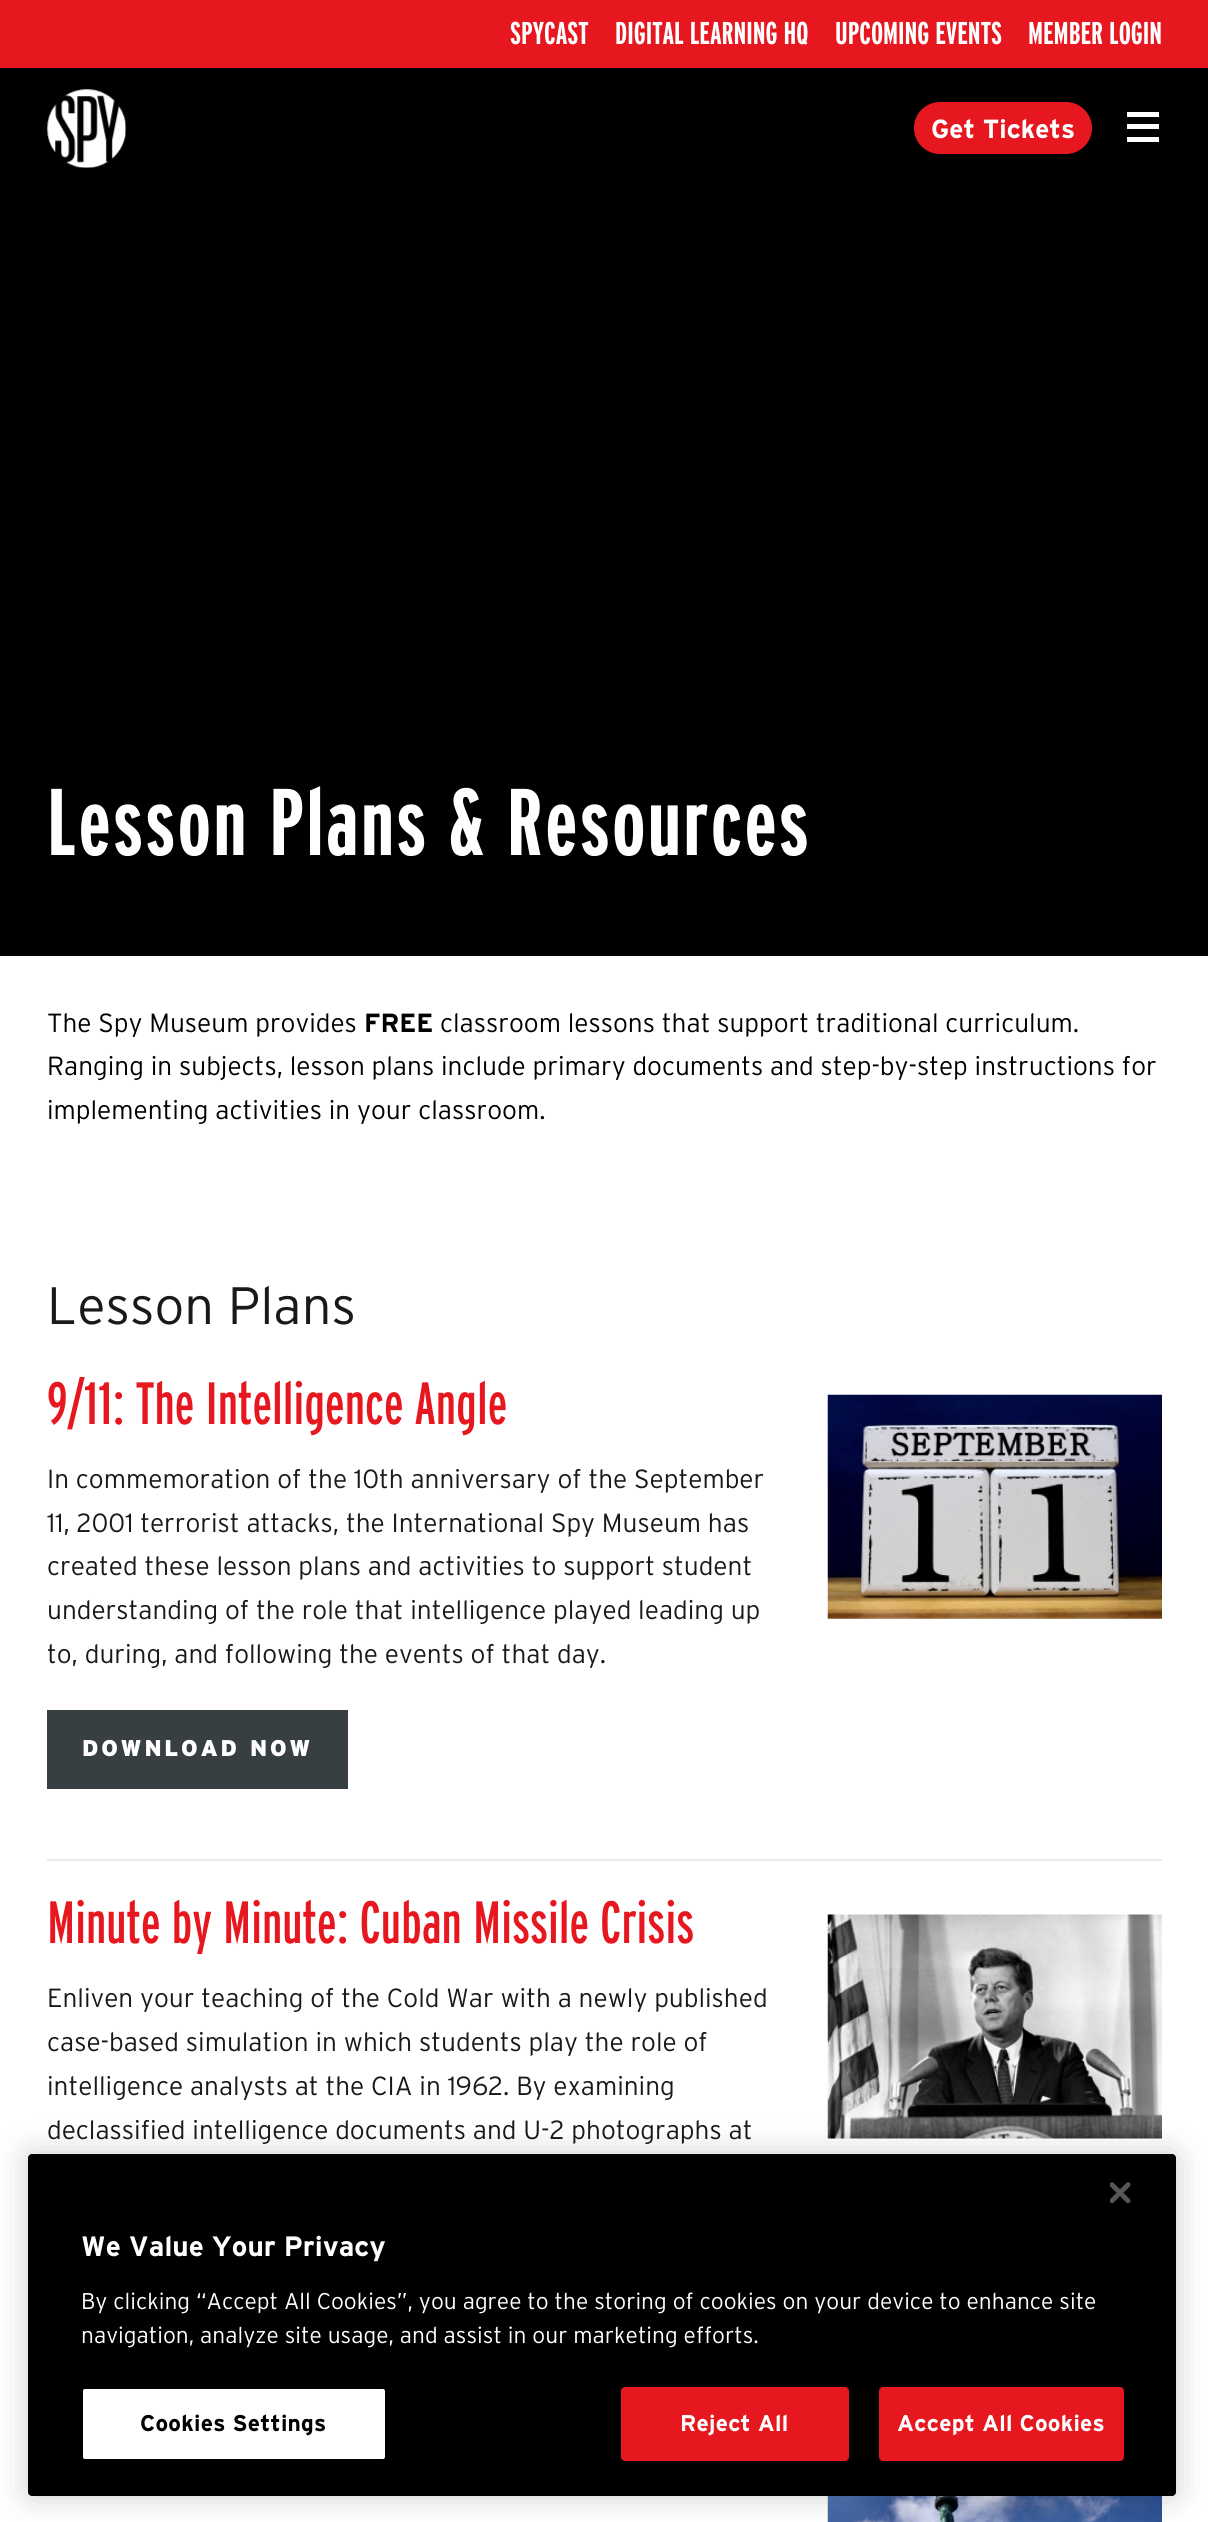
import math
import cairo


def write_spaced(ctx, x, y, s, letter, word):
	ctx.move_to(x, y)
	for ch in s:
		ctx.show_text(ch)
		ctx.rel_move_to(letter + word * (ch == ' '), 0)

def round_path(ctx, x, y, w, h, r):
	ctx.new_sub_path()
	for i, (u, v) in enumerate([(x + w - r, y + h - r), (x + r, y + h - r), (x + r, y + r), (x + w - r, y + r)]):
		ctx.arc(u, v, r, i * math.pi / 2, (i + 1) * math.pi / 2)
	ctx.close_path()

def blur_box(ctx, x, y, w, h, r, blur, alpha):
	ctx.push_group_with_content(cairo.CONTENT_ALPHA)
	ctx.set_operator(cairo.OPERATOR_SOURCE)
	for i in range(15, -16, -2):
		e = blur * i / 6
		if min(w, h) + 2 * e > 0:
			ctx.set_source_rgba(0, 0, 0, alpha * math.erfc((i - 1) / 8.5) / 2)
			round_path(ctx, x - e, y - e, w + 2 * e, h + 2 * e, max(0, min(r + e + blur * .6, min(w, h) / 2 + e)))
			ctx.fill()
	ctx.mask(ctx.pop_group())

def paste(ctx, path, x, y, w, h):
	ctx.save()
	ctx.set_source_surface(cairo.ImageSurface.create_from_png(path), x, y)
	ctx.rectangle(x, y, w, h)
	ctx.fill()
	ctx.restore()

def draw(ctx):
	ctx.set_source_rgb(1, 1, 1)
	ctx.paint()
	ctx.set_source_rgb(0.902, 0.09, 0.122)
	ctx.rectangle(0, 0, 1208, 68)
	ctx.fill()
	ctx.select_font_face('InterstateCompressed', cairo.FONT_SLANT_NORMAL, cairo.FONT_WEIGHT_BOLD)
	ctx.set_font_size(31.5)
	ctx.set_source_rgb(1, 1, 1)
	for x, y, s in [
		(510, 44, 'SPYCAST'),
		(615, 44, 'DIGITAL LEARNING HQ'),
		(835, 44, 'UPCOMING EVENTS'),
		(1028, 44, 'MEMBER LOGIN'),
	]:
		ctx.move_to(x, y)
		ctx.show_text(s)
	ctx.set_source_rgb(0, 0, 0)
	ctx.rectangle(0, 68, 1208, 888)
	ctx.fill()
	paste(ctx, 'media/1.png', 47, 89, 79, 79)
	ctx.set_source_rgb(0.902, 0.09, 0.122)
	round_path(ctx, 914, 102, 178, 52, 26)
	ctx.fill()
	ctx.select_font_face('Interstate', cairo.FONT_SLANT_NORMAL, cairo.FONT_WEIGHT_BOLD)
	ctx.set_font_size(26.25)
	ctx.set_source_rgb(1, 1, 1)
	ctx.move_to(931, 138)
	ctx.show_text('Get Tickets')
	ctx.rectangle(1127, 112, 32, 5)
	ctx.rectangle(1127, 137, 32, 5)
	ctx.rectangle(1127, 124, 32, 5)
	ctx.fill()
	ctx.select_font_face('InterstateCompressed', cairo.FONT_SLANT_NORMAL, cairo.FONT_WEIGHT_BOLD)
	ctx.set_font_size(94.5)
	write_spaced(ctx, 47, 855, 'Lesson Plans & Resources', 2.6, 0)
	ctx.select_font_face('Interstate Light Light')
	ctx.set_font_size(26.25)
	ctx.set_source_rgb(0, 0, 0)
	ctx.move_to(47, 1032)
	ctx.show_text('The Spy Museum provides')
	ctx.select_font_face('Interstate', cairo.FONT_SLANT_NORMAL, cairo.FONT_WEIGHT_BOLD)
	ctx.move_to(364, 1032)
	ctx.show_text('FREE')
	ctx.select_font_face('Interstate Light Light')
	for x, y, s in [
		(440, 1032, 'classroom lessons that support traditional curriculum.'),
		(47, 1075, 'Ranging in subjects, lesson plans include primary documents and step-by-step instructions for'),
		(47, 1119, 'implementing activities in your classroom.'),
	]:
		ctx.move_to(x, y)
		ctx.show_text(s)
	ctx.set_font_size(52.5)
	ctx.set_source_rgb(0.102, 0.098, 0.094)
	ctx.move_to(47, 1324)
	ctx.show_text('Lesson Plans')
	ctx.set_source_rgb(0.918, 0.918, 0.918)
	ctx.rectangle(47, 1859, 1115, 2)
	ctx.fill()
	ctx.select_font_face('InterstateCompressed')
	ctx.set_font_size(59.5)
	ctx.set_source_rgb(0.902, 0.09, 0.122)
	ctx.move_to(47, 1424)
	ctx.show_text('9/11: The Intelligence Angle')
	ctx.select_font_face('Interstate Light Light')
	ctx.set_font_size(26.25)
	ctx.set_source_rgb(0.102, 0.098, 0.094)
	for x, y, s in [
		(47, 1488, 'In commemoration of the 10th anniversary of the September'),
		(47, 1532, '11, 2001 terrorist attacks, the International Spy Museum has'),
		(47, 1575, 'created these lesson plans and activities to support student'),
		(47, 1619, 'understanding of the role that intelligence played leading up'),
		(47, 1663, 'to, during, and following the events of that day.'),
	]:
		ctx.move_to(x, y)
		ctx.show_text(s)
	ctx.set_source_rgb(0.22, 0.247, 0.259)
	ctx.rectangle(47, 1710, 301, 79)
	ctx.fill()
	ctx.select_font_face('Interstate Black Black')
	ctx.set_font_size(22.75)
	ctx.set_source_rgb(1, 1, 1)
	write_spaced(ctx, 82, 1756, 'DOWNLOAD NOW', 2.75, 0)
	paste(ctx, 'media/2.png', 827, 1394, 335, 225)
	ctx.select_font_face('InterstateCompressed')
	ctx.set_font_size(59.5)
	ctx.set_source_rgb(0.902, 0.09, 0.122)
	ctx.move_to(47, 1943)
	ctx.show_text('Minute by Minute: Cuban Missile Crisis')
	ctx.select_font_face('Interstate Light Light')
	ctx.set_font_size(26.25)
	ctx.set_source_rgb(0.102, 0.098, 0.094)
	for x, y, s in [
		(47, 2007, 'Enliven your teaching of the Cold War with a newly published'),
		(47, 2051, 'case-based simulation in which students play the role of'),
		(47, 2095, 'intelligence analysts at the CIA in 1962. By examining'),
		(47, 2139, 'declassified intelligence documents and U-2 photographs at'),
	]:
		ctx.move_to(x, y)
		ctx.show_text(s)
	paste(ctx, 'media/3.png', 827, 1914, 335, 225)
	paste(ctx, 'media/4.png', 827, 2496, 335, 26)
	ctx.set_source_rgb(0, 0, 0)
	blur_box(ctx, 28, 2154, 1148, 342, 4, 16, 0.2)
	ctx.set_source_rgb(0, 0, 0)
	round_path(ctx, 28, 2154, 1148, 342, 4)
	ctx.fill()
	paste(ctx, 'media/5.png', 1110, 2182, 21, 21)
	ctx.select_font_face('Interstate', cairo.FONT_SLANT_NORMAL, cairo.FONT_WEIGHT_BOLD)
	ctx.set_font_size(28)
	ctx.set_source_rgb(1, 1, 1)
	ctx.move_to(81, 2256)
	ctx.show_text('We Value Your Privacy')
	ctx.select_font_face('Interstate Light Light')
	ctx.set_font_size(22.75)
	ctx.move_to(81, 2309)
	ctx.show_text('By clicking “Accept All Cookies”, you agree to the storing of cookies on your device to enhance site')
	ctx.move_to(81, 2343)
	ctx.show_text('navigation, analyze site usage, and assist in our marketing efforts.')
	round_path(ctx, 82, 2388, 304, 72, 3)
	ctx.fill_preserve()
	ctx.set_source_rgb(0, 0, 0)
	ctx.stroke()
	ctx.select_font_face('Interstate', cairo.FONT_SLANT_NORMAL, cairo.FONT_WEIGHT_BOLD)
	write_spaced(ctx, 140, 2431, 'Cookies Settings', 0.25, 0)
	ctx.set_source_rgb(0.902, 0.09, 0.122)
	round_path(ctx, 622, 2388, 226, 72, 3)
	ctx.fill_preserve()
	ctx.stroke()
	ctx.set_source_rgb(1, 1, 1)
	write_spaced(ctx, 680, 2431, 'Reject All', 0.25, 0)
	ctx.set_source_rgb(0.902, 0.09, 0.122)
	round_path(ctx, 880, 2388, 243, 72, 3)
	ctx.fill_preserve()
	ctx.stroke()
	ctx.set_source_rgb(1, 1, 1)
	write_spaced(ctx, 897, 2431, 'Accept All Cookies', 0.25, 0)


surface = cairo.ImageSurface(cairo.FORMAT_RGB24, 1208, 2522)
ctx = cairo.Context(surface)
options = cairo.FontOptions()
options.set_hint_metrics(cairo.HINT_METRICS_OFF)
options.set_hint_style(cairo.HINT_STYLE_NONE)
ctx.set_font_options(options)
ctx.set_miter_limit(4)
draw(ctx)
surface.write_to_png('image.png')
